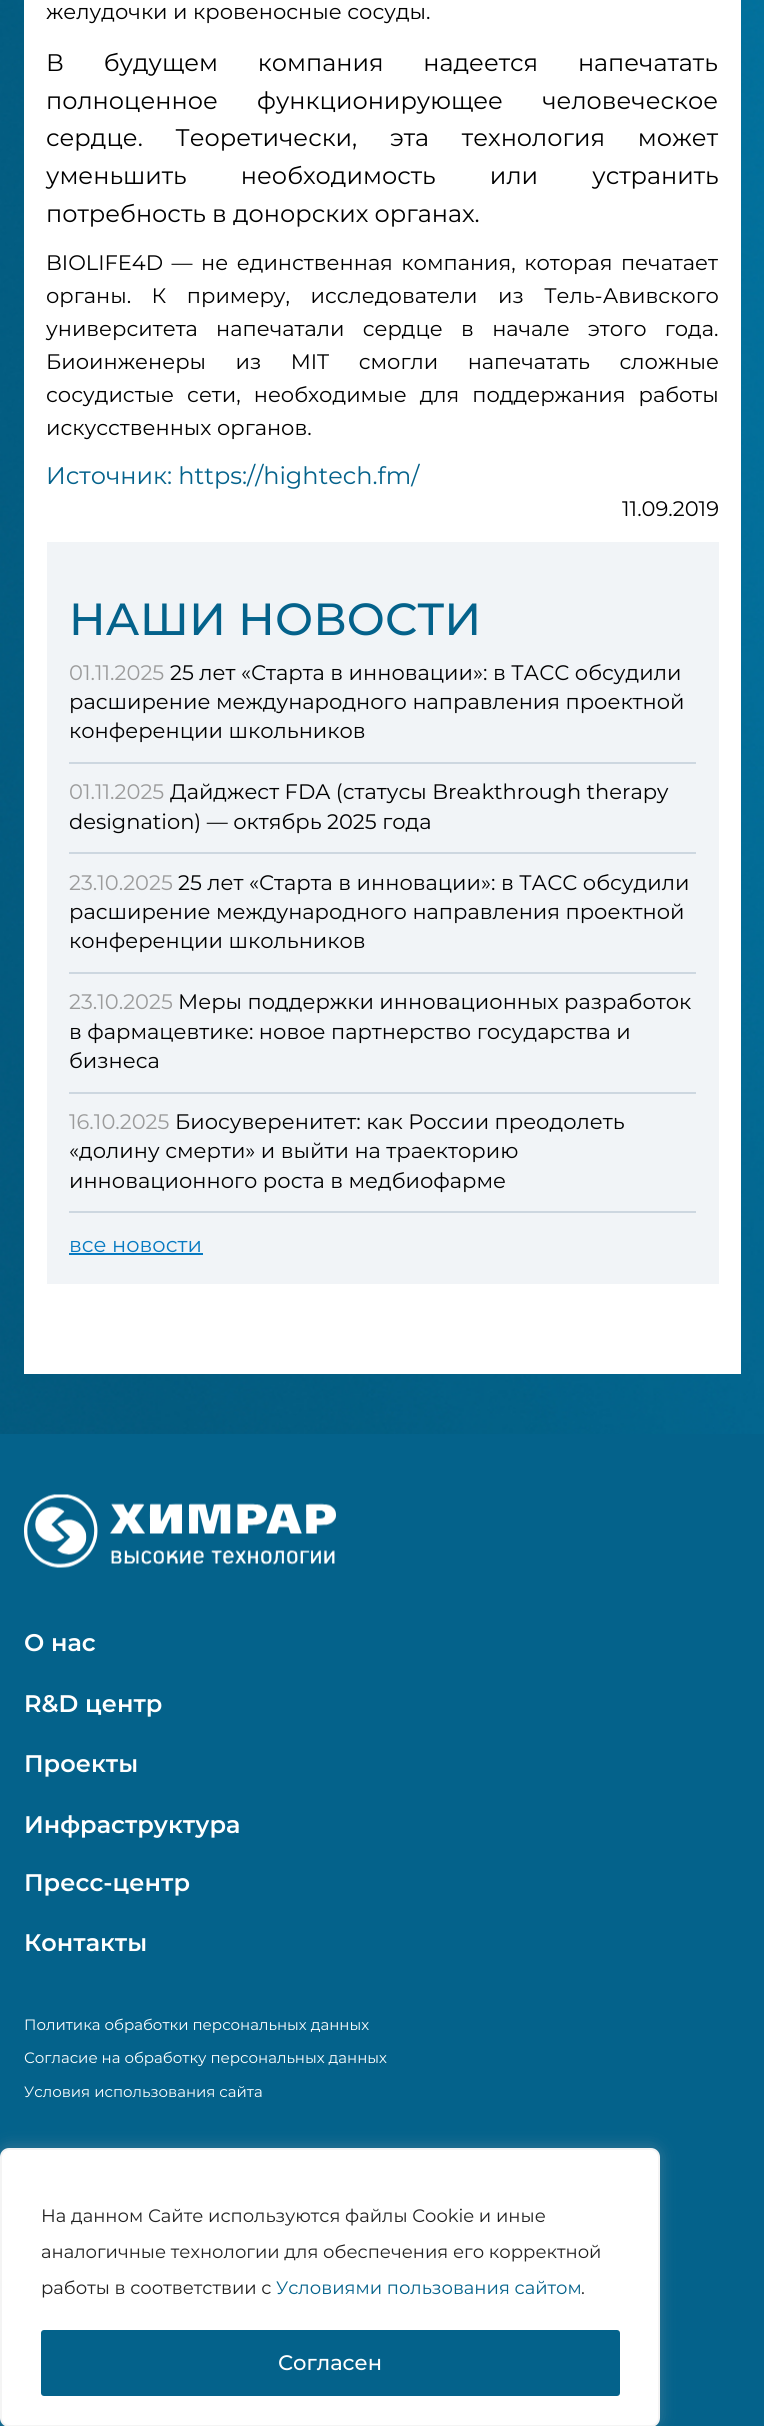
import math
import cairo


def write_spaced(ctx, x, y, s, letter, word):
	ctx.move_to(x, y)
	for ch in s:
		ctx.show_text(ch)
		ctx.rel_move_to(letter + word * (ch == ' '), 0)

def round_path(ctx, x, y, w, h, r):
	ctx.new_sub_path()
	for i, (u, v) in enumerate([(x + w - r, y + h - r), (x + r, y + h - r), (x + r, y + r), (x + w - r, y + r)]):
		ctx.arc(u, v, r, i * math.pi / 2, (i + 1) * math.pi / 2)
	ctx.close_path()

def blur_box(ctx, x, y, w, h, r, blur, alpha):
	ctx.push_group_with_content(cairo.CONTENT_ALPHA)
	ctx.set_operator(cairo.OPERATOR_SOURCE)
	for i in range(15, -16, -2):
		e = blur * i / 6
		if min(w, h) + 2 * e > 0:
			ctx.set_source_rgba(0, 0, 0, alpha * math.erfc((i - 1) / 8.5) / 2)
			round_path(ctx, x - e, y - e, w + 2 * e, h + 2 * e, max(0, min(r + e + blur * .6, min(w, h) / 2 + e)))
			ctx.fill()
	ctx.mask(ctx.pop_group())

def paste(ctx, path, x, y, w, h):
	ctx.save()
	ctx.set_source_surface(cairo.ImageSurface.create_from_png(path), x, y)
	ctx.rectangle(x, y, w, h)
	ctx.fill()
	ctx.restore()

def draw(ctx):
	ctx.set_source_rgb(1, 1, 1)
	ctx.paint()
	paste(ctx, 'media/1.png', 0, 0, 764, 1434)
	ctx.set_source_rgb(1, 1, 1)
	ctx.rectangle(24, 0, 717, 1374)
	ctx.fill()
	ctx.select_font_face('Montserrat')
	ctx.set_font_size(21)
	ctx.set_source_rgb(0, 0, 0)
	ctx.move_to(46, 19)
	ctx.show_text('желудочки и кровеносные сосуды.')
	ctx.set_font_size(24)
	write_spaced(ctx, 46, 71, 'В будущем компания надеется напечатать', 0, 33.5)
	write_spaced(ctx, 46, 109, 'полноценное функционирующее человеческое', 0, 33)
	write_spaced(ctx, 46, 146, 'сердце. Теоретически, эта технология может', 0, 26.5)
	write_spaced(ctx, 46, 184, 'уменьшить необходимость или устранить', 0, 48)
	ctx.move_to(46, 222)
	ctx.show_text('потребность в донорских органах.')
	ctx.set_font_size(21)
	write_spaced(ctx, 46, 270, 'BIOLIFE4D — не единственная компания, которая печатает', 0, 3)
	write_spaced(ctx, 46, 303, 'органы. К примеру, исследователи из Тель-Авивского', 0, 15)
	write_spaced(ctx, 46, 336, 'университета напечатали сердце в начале этого года.', 0, 12.75)
	write_spaced(ctx, 46, 369, 'Биоинженеры из MIT смогли напечатать сложные', 0, 24)
	write_spaced(ctx, 46, 402, 'сосудистые сети, необходимые для поддержания работы', 0, 7.5)
	ctx.move_to(46, 435)
	ctx.show_text('искусственных органов.')
	ctx.set_font_size(24)
	ctx.set_source_rgb(0.016, 0.384, 0.545)
	ctx.move_to(46, 484)
	ctx.show_text('Источник: https://hightech.fm/')
	ctx.set_font_size(21)
	ctx.set_source_rgb(0, 0, 0)
	ctx.move_to(622, 516)
	ctx.show_text('11.09.2019')
	ctx.set_source_rgb(0.945, 0.957, 0.965)
	ctx.rectangle(47, 542, 672, 742)
	ctx.fill()
	ctx.select_font_face('Montserrat Medium')
	ctx.set_font_size(45)
	ctx.set_source_rgb(0.016, 0.384, 0.545)
	ctx.move_to(69, 635)
	ctx.show_text('HАШИ НОВОСТИ')
	ctx.set_source_rgb(0.804, 0.843, 0.878)
	ctx.rectangle(69, 762, 627, 2)
	ctx.fill()
	ctx.select_font_face('Montserrat')
	ctx.set_font_size(21)
	ctx.set_source_rgb(0.608, 0.608, 0.608)
	ctx.move_to(69, 680)
	ctx.show_text('01.11.2025')
	ctx.set_source_rgb(0, 0, 0)
	for x, y, s in [
		(170, 680, '25 лет «Старта в инновации»: в ТАСС обсудили'),
		(69, 709, 'расширение международного направления проектной'),
		(69, 738, 'конференции школьников'),
	]:
		ctx.move_to(x, y)
		ctx.show_text(s)
	ctx.set_source_rgb(0.804, 0.843, 0.878)
	ctx.rectangle(69, 852, 627, 2)
	ctx.fill()
	ctx.set_source_rgb(0.608, 0.608, 0.608)
	ctx.move_to(69, 799)
	ctx.show_text('01.11.2025')
	ctx.set_source_rgb(0, 0, 0)
	ctx.move_to(170, 799)
	ctx.show_text('Дайджест FDA (статусы Breakthrough therapy')
	ctx.move_to(69, 829)
	ctx.show_text('designation) — октябрь 2025 года')
	ctx.set_source_rgb(0.804, 0.843, 0.878)
	ctx.rectangle(69, 972, 627, 2)
	ctx.fill()
	ctx.set_source_rgb(0.608, 0.608, 0.608)
	ctx.move_to(69, 890)
	ctx.show_text('23.10.2025')
	ctx.set_source_rgb(0, 0, 0)
	for x, y, s in [
		(178, 890, '25 лет «Старта в инновации»: в ТАСС обсудили'),
		(69, 919, 'расширение международного направления проектной'),
		(69, 948, 'конференции школьников'),
	]:
		ctx.move_to(x, y)
		ctx.show_text(s)
	ctx.set_source_rgb(0.804, 0.843, 0.878)
	ctx.rectangle(69, 1092, 627, 2)
	ctx.fill()
	ctx.set_source_rgb(0.608, 0.608, 0.608)
	ctx.move_to(69, 1009)
	ctx.show_text('23.10.2025')
	ctx.set_source_rgb(0, 0, 0)
	for x, y, s in [
		(178, 1009, 'Меры поддержки инновационных разработок'),
		(69, 1039, 'в фармацевтике: новое партнерство государства и'),
		(69, 1068, 'бизнеса'),
	]:
		ctx.move_to(x, y)
		ctx.show_text(s)
	ctx.set_source_rgb(0.804, 0.843, 0.878)
	ctx.rectangle(69, 1211, 627, 2)
	ctx.fill()
	ctx.set_source_rgb(0.608, 0.608, 0.608)
	ctx.move_to(69, 1129)
	ctx.show_text('16.10.2025')
	ctx.set_source_rgb(0, 0, 0)
	for x, y, s in [
		(175, 1129, 'Биосуверенитет: как России преодолеть'),
		(69, 1158, '«долину смерти» и выйти на траекторию'),
		(69, 1188, 'инновационного роста в медбиофарме'),
	]:
		ctx.move_to(x, y)
		ctx.show_text(s)
	ctx.set_source_rgb(0.031, 0.478, 0.757)
	ctx.move_to(69, 1252)
	ctx.show_text('все новости')
	ctx.rectangle(69, 1253, 134, 2)
	ctx.fill()
	ctx.set_source_rgb(0.016, 0.384, 0.545)
	ctx.rectangle(0, 1434, 764, 992)
	ctx.fill()
	paste(ctx, 'media/2.png', 24, 1494, 312, 74)
	ctx.select_font_face('Montserrat SemiBold')
	ctx.set_font_size(24)
	ctx.set_source_rgb(1, 1, 1)
	for x, y, s in [
		(24, 1651, 'О нас'),
		(24, 1712, 'R&D центр'),
		(24, 1772, 'Проекты'),
		(24, 1833, 'Инфраструктура'),
		(24, 1891, 'Пресс-центр'),
		(24, 1951, 'Контакты'),
	]:
		ctx.move_to(x, y)
		ctx.show_text(s)
	ctx.select_font_face('Montserrat')
	ctx.set_font_size(15)
	for x, y, s in [
		(24, 2030, 'Политика обработки персональных данных'),
		(24, 2063, 'Согласие на обработку персональных данных'),
		(24, 2097, 'Условия использования сайта'),
	]:
		ctx.move_to(x, y)
		ctx.show_text(s)
	ctx.set_source_rgb(0.675, 0.671, 0.671)
	blur_box(ctx, 0, 2147, 660, 279, 9, 7.5, 0.3)
	ctx.set_source_rgb(1, 1, 1)
	round_path(ctx, 1, 2149, 658, 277, 8)
	ctx.fill_preserve()
	ctx.set_source_rgb(0.957, 0.957, 0.957)
	ctx.stroke()
	ctx.set_font_size(18)
	ctx.set_source_rgb(0.129, 0.129, 0.129)
	for x, y, s in [
		(41, 2222, 'На данном Сайте используются файлы Cookie и иные'),
		(41, 2258, 'аналогичные технологии для обеспечения его корректной'),
		(41, 2294, 'работы в соответствии с'),
	]:
		ctx.move_to(x, y)
		ctx.show_text(s)
	ctx.set_source_rgb(0.016, 0.384, 0.545)
	ctx.move_to(276, 2294)
	ctx.show_text('Условиями пользования сайтом')
	ctx.set_source_rgb(0.129, 0.129, 0.129)
	ctx.move_to(581, 2294)
	ctx.show_text('.')
	ctx.set_source_rgb(0.016, 0.384, 0.545)
	round_path(ctx, 42.5, 2331.5, 576, 63, 1.5)
	ctx.fill_preserve()
	ctx.set_line_width(3)
	ctx.stroke()
	ctx.select_font_face('Montserrat Medium')
	ctx.set_font_size(21)
	ctx.set_source_rgb(1, 1, 1)
	ctx.move_to(278, 2370)
	ctx.show_text('Согласен')


surface = cairo.ImageSurface(cairo.FORMAT_RGB24, 764, 2426)
ctx = cairo.Context(surface)
options = cairo.FontOptions()
options.set_hint_metrics(cairo.HINT_METRICS_OFF)
options.set_hint_style(cairo.HINT_STYLE_NONE)
ctx.set_font_options(options)
ctx.set_miter_limit(4)
draw(ctx)
surface.write_to_png('image.png')
